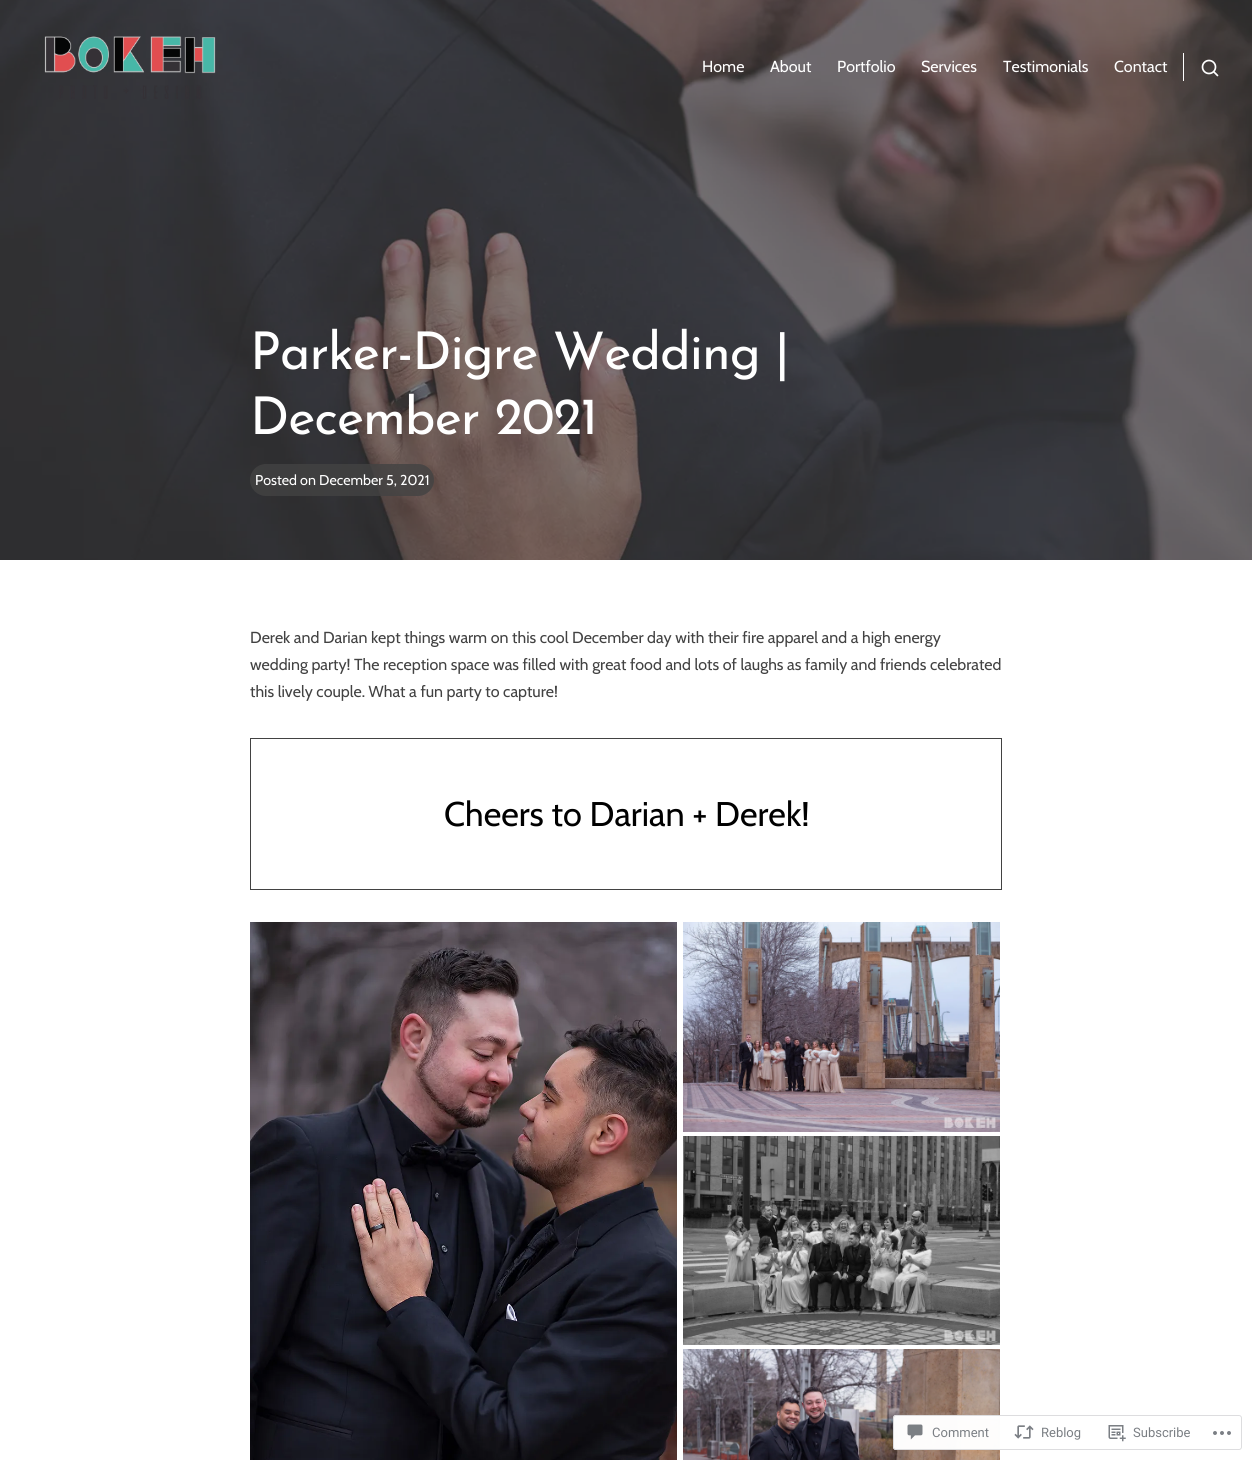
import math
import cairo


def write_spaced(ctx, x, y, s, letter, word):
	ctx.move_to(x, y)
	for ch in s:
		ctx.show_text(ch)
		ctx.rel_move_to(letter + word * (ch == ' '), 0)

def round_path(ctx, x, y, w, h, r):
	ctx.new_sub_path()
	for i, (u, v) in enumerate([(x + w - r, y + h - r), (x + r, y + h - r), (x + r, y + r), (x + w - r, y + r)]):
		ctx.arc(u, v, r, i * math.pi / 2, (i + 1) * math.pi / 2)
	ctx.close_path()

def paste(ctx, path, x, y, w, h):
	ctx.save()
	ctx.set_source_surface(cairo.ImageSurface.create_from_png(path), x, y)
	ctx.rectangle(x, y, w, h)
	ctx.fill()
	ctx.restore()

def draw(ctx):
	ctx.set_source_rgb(1, 1, 1)
	ctx.paint()
	paste(ctx, 'media/2.png', 0, 0, 1252, 560)
	paste(ctx, 'media/1.png', 44, 36, 172, 63)
	ctx.select_font_face('Cabin')
	ctx.set_font_size(16)
	ctx.set_source_rgb(1, 1, 1)
	for x, y, s in [
		(702, 72, 'Home'),
		(770, 72, 'About'),
		(837, 72, 'Portfolio'),
		(921, 72, 'Services'),
		(1003, 72, 'Testimonials'),
		(1114, 72, 'Contact'),
	]:
		ctx.move_to(x, y)
		ctx.show_text(s)
	ctx.rectangle(1183, 53, 1, 28)
	ctx.fill()
	ctx.arc(1209, 67, 6.5, 0, 2 * math.pi)
	ctx.set_line_width(1.7)
	ctx.stroke()
	ctx.new_path()
	ctx.move_to(1217.5, 75.5)
	ctx.line_to(1214, 72)
	ctx.set_line_cap(cairo.LINE_CAP_ROUND)
	ctx.set_line_join(cairo.LINE_JOIN_ROUND)
	ctx.stroke()
	ctx.select_font_face('Josefin Sans Thin')
	ctx.set_font_size(52)
	write_spaced(ctx, 250, 369, 'Parker-Digre Wedding |', -1, 0)
	write_spaced(ctx, 250, 434, 'December 2021', -1, 0)
	ctx.set_source_rgba(0.259, 0.259, 0.259, 0.8)
	round_path(ctx, 250, 464, 184, 32, 16)
	ctx.fill()
	ctx.select_font_face('Cabin')
	ctx.set_font_size(14.25)
	ctx.set_source_rgb(1, 1, 1)
	ctx.move_to(255, 485)
	ctx.show_text('Posted on December 5, 2021')
	ctx.set_font_size(16)
	ctx.set_source_rgb(0.259, 0.259, 0.259)
	for x, y, s in [
		(250, 643, 'Derek and Darian kept things warm on this cool December day with their fire apparel and a high energy'),
		(250, 670, 'wedding party! The reception space was filled with great food and lots of laughs as family and friends celebrated'),
		(250, 697, 'this lively couple. What a fun party to capture!'),
	]:
		ctx.move_to(x, y)
		ctx.show_text(s)
	ctx.rectangle(250.5, 738.5, 751, 151)
	ctx.set_line_width(1)
	ctx.set_line_cap(cairo.LINE_CAP_BUTT)
	ctx.set_line_join(cairo.LINE_JOIN_MITER)
	ctx.stroke()
	ctx.set_font_size(34.25)
	ctx.set_source_rgb(0, 0, 0)
	ctx.move_to(444, 826)
	ctx.show_text('Cheers to Darian + Derek!')
	paste(ctx, 'media/3.png', 250, 922, 427, 538)
	paste(ctx, 'media/4.png', 683, 922, 317, 210)
	paste(ctx, 'media/5.png', 683, 1136, 317, 209)
	paste(ctx, 'media/6.png', 683, 1349, 317, 111)
	ctx.set_source_rgba(1, 1, 1, 0.98)
	round_path(ctx, 893, 1415, 349, 35, 3)
	ctx.fill()
	round_path(ctx, 893.5, 1415.5, 348, 34, 2.5)
	ctx.set_source_rgba(0.863, 0.863, 0.871, 0.98)
	ctx.stroke()
	paste(ctx, 'media/7.png', 907, 1424, 16, 16)
	ctx.select_font_face('Roboto')
	ctx.set_font_size(13)
	ctx.set_source_rgb(0.482, 0.498, 0.518)
	ctx.move_to(932, 1437)
	ctx.show_text('Comment')
	paste(ctx, 'media/8.png', 1014, 1425, 20, 14)
	ctx.move_to(1041, 1437)
	ctx.show_text('Reblog')
	paste(ctx, 'media/9.png', 1108, 1425, 18, 17)
	ctx.move_to(1133, 1437)
	ctx.show_text('Subscribe')
	paste(ctx, 'media/10.png', 1213, 1431, 18, 4)


surface = cairo.ImageSurface(cairo.FORMAT_RGB24, 1252, 1460)
ctx = cairo.Context(surface)
options = cairo.FontOptions()
options.set_hint_metrics(cairo.HINT_METRICS_OFF)
options.set_hint_style(cairo.HINT_STYLE_NONE)
ctx.set_font_options(options)
ctx.set_miter_limit(4)
draw(ctx)
surface.write_to_png('image.png')
